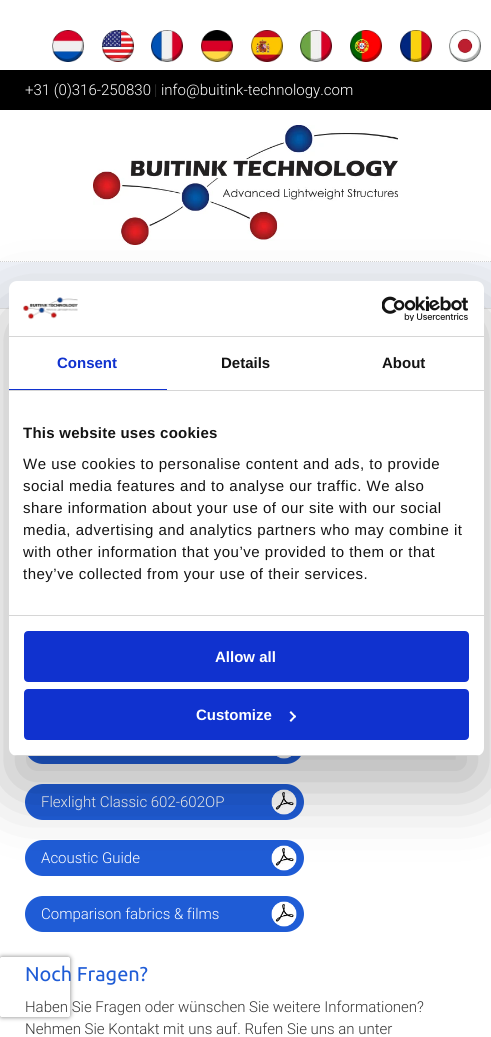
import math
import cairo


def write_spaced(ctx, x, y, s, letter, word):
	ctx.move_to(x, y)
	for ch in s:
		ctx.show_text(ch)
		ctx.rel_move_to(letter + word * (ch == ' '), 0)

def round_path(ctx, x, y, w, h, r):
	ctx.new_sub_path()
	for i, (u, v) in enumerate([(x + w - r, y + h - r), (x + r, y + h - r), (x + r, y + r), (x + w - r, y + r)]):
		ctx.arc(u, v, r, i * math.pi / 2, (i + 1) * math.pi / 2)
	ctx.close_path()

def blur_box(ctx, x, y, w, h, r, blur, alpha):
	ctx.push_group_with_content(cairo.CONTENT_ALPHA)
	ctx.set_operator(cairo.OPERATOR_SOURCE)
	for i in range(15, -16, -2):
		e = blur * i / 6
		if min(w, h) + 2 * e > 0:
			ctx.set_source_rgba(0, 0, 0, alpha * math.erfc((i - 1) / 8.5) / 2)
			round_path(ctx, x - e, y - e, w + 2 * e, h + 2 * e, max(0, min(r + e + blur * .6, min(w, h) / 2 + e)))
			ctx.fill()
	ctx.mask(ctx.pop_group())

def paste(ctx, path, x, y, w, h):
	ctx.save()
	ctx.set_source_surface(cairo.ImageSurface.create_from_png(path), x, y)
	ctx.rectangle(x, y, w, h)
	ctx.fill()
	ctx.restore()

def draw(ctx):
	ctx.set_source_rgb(1, 1, 1)
	ctx.paint()
	paste(ctx, 'media/1.png', 52, 30, 32, 32)
	paste(ctx, 'media/2.png', 102, 30, 32, 32)
	paste(ctx, 'media/3.png', 151, 30, 32, 32)
	paste(ctx, 'media/4.png', 201, 30, 32, 32)
	paste(ctx, 'media/5.png', 251, 30, 32, 32)
	paste(ctx, 'media/6.png', 300, 30, 32, 32)
	paste(ctx, 'media/7.png', 350, 30, 32, 32)
	paste(ctx, 'media/8.png', 400, 30, 32, 32)
	paste(ctx, 'media/9.png', 449, 30, 32, 32)
	ctx.set_source_rgb(0, 0, 0)
	ctx.rectangle(0, 70, 491, 40)
	ctx.fill()
	ctx.select_font_face('Roboto Light')
	ctx.set_font_size(15)
	ctx.set_source_rgb(1, 1, 1)
	ctx.move_to(25, 95)
	ctx.show_text('+31 (0)316-250830')
	ctx.set_source_rgb(0.208, 0.208, 0.208)
	ctx.move_to(154, 95)
	ctx.show_text('|')
	ctx.set_source_rgb(1, 1, 1)
	ctx.move_to(161, 95)
	ctx.show_text('info@buitink-technology.com')
	paste(ctx, 'media/10.png', 93, 125, 305, 120)
	ctx.new_path()
	ctx.move_to(0, 261.5)
	ctx.line_to(491, 261.5)
	ctx.set_source_rgb(0.827, 0.827, 0.827)
	ctx.set_line_width(1)
	ctx.set_dash([1, 1])
	ctx.stroke()
	ctx.set_source_rgb(0.937, 0.949, 0.969)
	ctx.rectangle(0, 262, 491, 46)
	ctx.fill()
	ctx.set_source_rgb(0.894, 0.894, 0.894)
	ctx.rectangle(0, 308, 491, 1)
	ctx.fill()
	ctx.set_source_rgb(0.122, 0.361, 0.839)
	round_path(ctx, 25, 728, 279, 36, 18)
	ctx.fill()
	paste(ctx, 'media/11.png', 277, 756, 14, 3)
	round_path(ctx, 25, 784, 279, 36, 18)
	ctx.fill()
	paste(ctx, 'media/12.png', 271, 789, 26, 26)
	ctx.set_source_rgb(1, 1, 1)
	ctx.move_to(41, 807)
	ctx.show_text('Flexlight Classic 602-602OP')
	ctx.set_source_rgb(0.122, 0.361, 0.839)
	round_path(ctx, 25, 840, 279, 36, 18)
	ctx.fill()
	paste(ctx, 'media/12.png', 271, 845, 26, 26)
	ctx.set_source_rgb(1, 1, 1)
	ctx.move_to(41, 863)
	ctx.show_text('Acoustic Guide')
	ctx.set_source_rgb(0.122, 0.361, 0.839)
	round_path(ctx, 25, 896, 279, 36, 18)
	ctx.fill()
	paste(ctx, 'media/12.png', 271, 901, 26, 26)
	ctx.set_source_rgb(1, 1, 1)
	ctx.move_to(41, 919)
	ctx.show_text('Comparison fabrics & films')
	ctx.select_font_face('Ubuntu')
	ctx.set_font_size(20)
	ctx.set_source_rgb(0.122, 0.361, 0.839)
	ctx.move_to(25, 981)
	ctx.show_text('Noch Fragen?')
	ctx.select_font_face('Roboto Light')
	ctx.set_font_size(15)
	ctx.set_source_rgb(0.208, 0.208, 0.208)
	ctx.move_to(25, 1012)
	ctx.show_text('Haben Sie Fragen oder wünschen Sie weitere Informationen?')
	ctx.move_to(25, 1034)
	ctx.show_text('Nehmen Sie Kontakt mit uns auf. Rufen Sie uns an unter')
	ctx.set_source_rgb(0, 0, 0)
	blur_box(ctx, 9, 313, 475, 475, 8, 34, 0.3)
	ctx.set_source_rgb(1, 1, 1)
	round_path(ctx, 9, 281, 475, 475, 8)
	ctx.fill()
	ctx.set_source_rgb(0.839, 0.839, 0.839)
	ctx.rectangle(9, 336, 475, 1)
	ctx.fill()
	paste(ctx, 'media/13.png', 23, 297, 55, 23)
	paste(ctx, 'media/14.png', 382, 296, 86, 25)
	ctx.rectangle(9, 390, 475, 1)
	ctx.fill()
	ctx.set_source_rgb(0.063, 0.196, 0.812)
	ctx.rectangle(9, 389, 158, 1)
	ctx.fill()
	ctx.select_font_face('Liberation Sans', cairo.FONT_SLANT_NORMAL, cairo.FONT_WEIGHT_BOLD)
	ctx.move_to(57, 368)
	ctx.show_text('Consent')
	ctx.set_source_rgb(0.078, 0.078, 0.078)
	ctx.move_to(221, 368)
	ctx.show_text('Details')
	ctx.move_to(382, 368)
	ctx.show_text('About')
	ctx.set_source_rgb(0.839, 0.839, 0.839)
	ctx.rectangle(9, 615, 475, 1)
	ctx.fill()
	ctx.set_source_rgb(0.078, 0.078, 0.078)
	write_spaced(ctx, 23, 438, 'This website uses cookies', 0.25, 0)
	ctx.select_font_face('Liberation Sans')
	for x, y, s in [
		(23, 469, 'We use cookies to personalise content and ads, to provide'),
		(23, 491, 'social media features and to analyse our traffic. We also'),
		(23, 513, 'share information about your use of our site with our social'),
		(23, 535, 'media, advertising and analytics partners who may combine it'),
		(23, 557, 'with other information that you’ve provided to them or that'),
		(23, 579, 'they’ve collected from your use of their services.'),
	]:
		write_spaced(ctx, x, y, s, 0.5, 0)
	ctx.save()
	round_path(ctx, 9, 281, 475, 475, 8)
	ctx.clip()
	ctx.set_source_rgb(0.839, 0.839, 0.839)
	ctx.rectangle(9, 755, 475, 1)
	ctx.fill()
	ctx.restore()
	ctx.set_source_rgb(0.063, 0.196, 0.812)
	round_path(ctx, 25, 632, 443, 49, 3)
	ctx.fill_preserve()
	ctx.set_line_width(2)
	ctx.set_dash([])
	ctx.stroke()
	ctx.select_font_face('Liberation Sans', cairo.FONT_SLANT_NORMAL, cairo.FONT_WEIGHT_BOLD)
	ctx.set_source_rgb(1, 1, 1)
	ctx.move_to(215, 662)
	ctx.show_text('Allow all')
	ctx.set_source_rgb(0.063, 0.196, 0.812)
	round_path(ctx, 25, 690, 443, 49, 3)
	ctx.fill_preserve()
	ctx.stroke()
	ctx.set_source_rgb(1, 1, 1)
	ctx.move_to(196, 720)
	ctx.show_text('Customize')
	ctx.new_path()
	ctx.move_to(291, 711)
	ctx.line_to(296, 716.5)
	ctx.line_to(295, 718)
	ctx.line_to(289.5, 712.5)
	ctx.close_path()
	ctx.fill()
	ctx.new_path()
	ctx.move_to(295, 715)
	ctx.line_to(296, 716.5)
	ctx.line_to(291, 722)
	ctx.line_to(289.5, 720.5)
	ctx.close_path()
	ctx.fill()
	ctx.save()
	ctx.set_fill_rule(cairo.FILL_RULE_EVEN_ODD)
	ctx.new_path()
	ctx.move_to(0, 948)
	ctx.line_to(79, 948)
	ctx.line_to(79, 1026)
	ctx.line_to(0, 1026)
	ctx.close_path()
	ctx.move_to(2, 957)
	ctx.line_to(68, 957)
	ctx.curve_to(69, 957, 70, 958, 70, 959)
	ctx.line_to(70, 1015)
	ctx.curve_to(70, 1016, 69, 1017, 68, 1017)
	ctx.line_to(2, 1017)
	ctx.curve_to(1, 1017, 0, 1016, 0, 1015)
	ctx.line_to(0, 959)
	ctx.curve_to(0, 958, 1, 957, 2, 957)
	ctx.close_path()
	ctx.clip()
	ctx.set_source_rgb(0.502, 0.502, 0.502)
	blur_box(ctx, 0, 957, 70, 60, 2, 2.5, 1)
	ctx.restore()


surface = cairo.ImageSurface(cairo.FORMAT_RGB24, 491, 1037)
ctx = cairo.Context(surface)
options = cairo.FontOptions()
options.set_hint_metrics(cairo.HINT_METRICS_OFF)
options.set_hint_style(cairo.HINT_STYLE_NONE)
ctx.set_font_options(options)
ctx.set_miter_limit(4)
draw(ctx)
surface.write_to_png('image.png')
